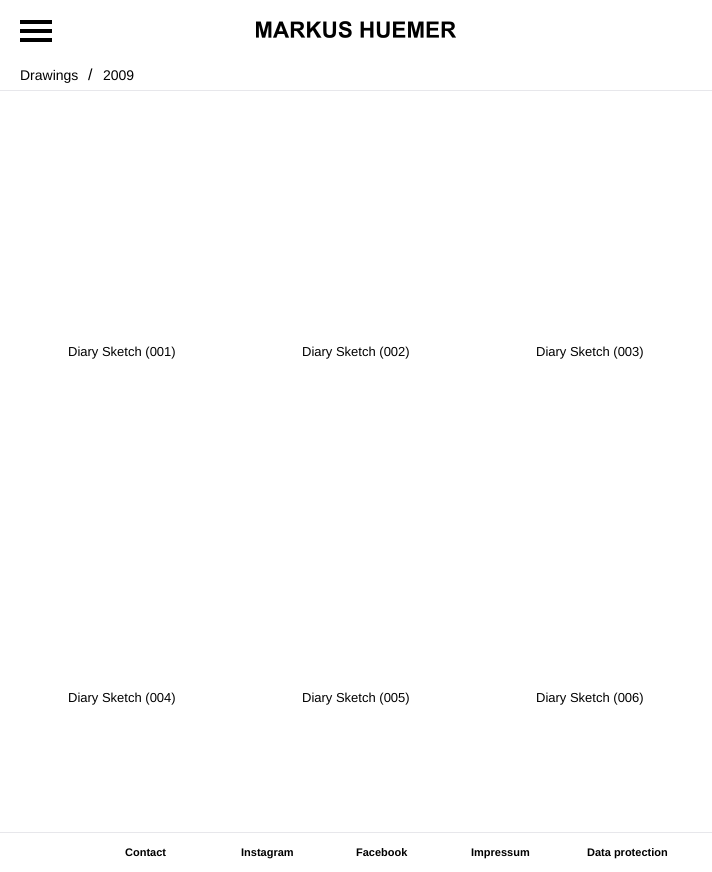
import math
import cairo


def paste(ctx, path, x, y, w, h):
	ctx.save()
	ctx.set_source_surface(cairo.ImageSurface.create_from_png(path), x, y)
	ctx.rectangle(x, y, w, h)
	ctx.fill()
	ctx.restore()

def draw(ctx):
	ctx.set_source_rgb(1, 1, 1)
	ctx.paint()
	ctx.set_source_rgb(0.906, 0.906, 0.918)
	ctx.rectangle(0, 90, 712, 1)
	ctx.fill()
	ctx.set_source_rgb(0, 0, 0)
	ctx.rectangle(20, 29, 32, 4)
	ctx.rectangle(20, 20, 32, 4)
	ctx.rectangle(20, 38, 32, 4)
	ctx.fill()
	paste(ctx, 'media/1.png', 256, 21, 200, 17)
	ctx.select_font_face('Liberation Sans')
	ctx.set_font_size(14)
	ctx.move_to(20, 80)
	ctx.show_text('Drawings')
	ctx.set_font_size(16)
	ctx.move_to(88, 80)
	ctx.show_text('/')
	ctx.set_font_size(14)
	ctx.move_to(103, 80)
	ctx.show_text('2009')
	ctx.set_font_size(13)
	for x, y, s in [
		(68, 356, 'Diary Sketch (001)'),
		(302, 356, 'Diary Sketch (002)'),
		(536, 356, 'Diary Sketch (003)'),
		(68, 702, 'Diary Sketch (004)'),
		(302, 702, 'Diary Sketch (005)'),
		(536, 702, 'Diary Sketch (006)'),
	]:
		ctx.move_to(x, y)
		ctx.show_text(s)
	ctx.set_source_rgb(0.906, 0.906, 0.918)
	ctx.rectangle(0, 832, 712, 1)
	ctx.fill()
	ctx.select_font_face('Liberation Sans', cairo.FONT_SLANT_NORMAL, cairo.FONT_WEIGHT_BOLD)
	ctx.set_font_size(11)
	ctx.set_source_rgb(0, 0, 0)
	for x, y, s in [
		(125, 856, 'Contact'),
		(241, 856, 'Instagram'),
		(356, 856, 'Facebook'),
		(471, 856, 'Impressum'),
		(587, 856, 'Data protection'),
	]:
		ctx.move_to(x, y)
		ctx.show_text(s)


surface = cairo.ImageSurface(cairo.FORMAT_RGB24, 712, 872)
ctx = cairo.Context(surface)
options = cairo.FontOptions()
options.set_hint_metrics(cairo.HINT_METRICS_OFF)
options.set_hint_style(cairo.HINT_STYLE_NONE)
ctx.set_font_options(options)
ctx.set_miter_limit(4)
draw(ctx)
surface.write_to_png('image.png')
